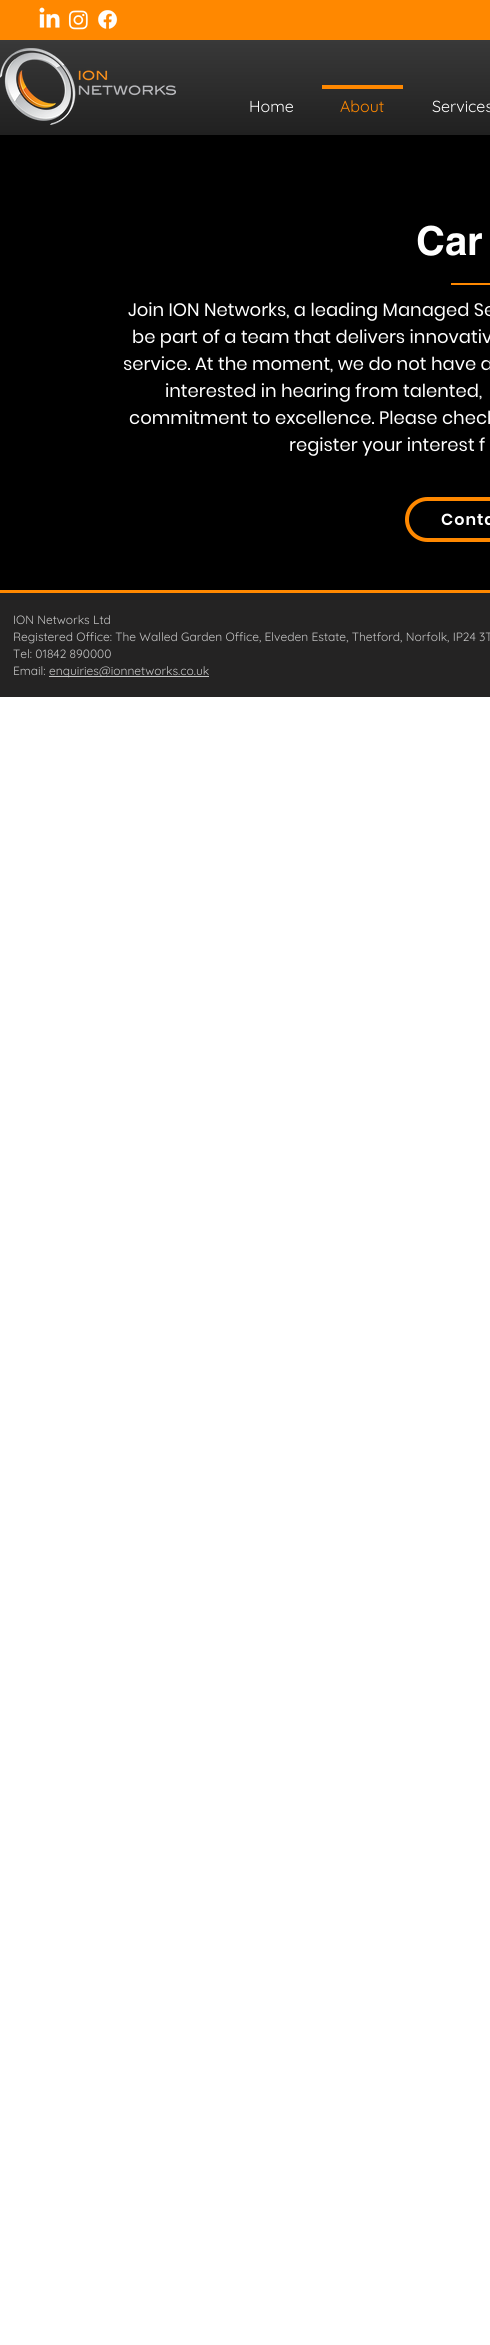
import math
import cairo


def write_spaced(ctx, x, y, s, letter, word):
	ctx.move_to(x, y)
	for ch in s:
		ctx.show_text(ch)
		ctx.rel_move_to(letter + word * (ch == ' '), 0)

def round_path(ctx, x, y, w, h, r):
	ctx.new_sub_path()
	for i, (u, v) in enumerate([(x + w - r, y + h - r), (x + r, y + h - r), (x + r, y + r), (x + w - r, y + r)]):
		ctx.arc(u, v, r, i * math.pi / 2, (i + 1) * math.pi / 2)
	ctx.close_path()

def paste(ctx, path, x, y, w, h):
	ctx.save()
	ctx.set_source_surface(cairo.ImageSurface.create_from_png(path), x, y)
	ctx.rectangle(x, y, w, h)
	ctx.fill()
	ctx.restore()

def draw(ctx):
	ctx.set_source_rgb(1, 1, 1)
	ctx.paint()
	ctx.set_source_rgb(0, 0, 0)
	ctx.rectangle(0, 40, 490, 550)
	ctx.fill()
	paste(ctx, 'media/1.png', 0, 40, 490, 95)
	ctx.set_source_rgb(1, 0.533, 0)
	ctx.rectangle(0, 0, 490, 1)
	ctx.fill()
	ctx.rectangle(0, 1, 490, 39)
	ctx.fill()
	paste(ctx, 'media/2.png', 39, 7, 21, 21)
	paste(ctx, 'media/3.png', 68, 10, 20, 20)
	paste(ctx, 'media/4.png', 98, 10, 20, 19)
	paste(ctx, 'media/5.png', 0, 48, 176, 77)
	ctx.select_font_face('Quicksand')
	ctx.set_font_size(16)
	ctx.set_source_rgb(1, 1, 1)
	ctx.move_to(249, 112)
	ctx.show_text('Home')
	ctx.set_source_rgb(1, 0.533, 0)
	ctx.rectangle(322, 85, 81, 4)
	ctx.fill()
	ctx.move_to(340, 112)
	ctx.show_text('About')
	ctx.set_source_rgb(1, 1, 1)
	ctx.move_to(432, 112)
	ctx.show_text('Services')
	ctx.select_font_face('helvetica', cairo.FONT_SLANT_NORMAL, cairo.FONT_WEIGHT_BOLD)
	ctx.set_font_size(40)
	ctx.move_to(416, 255)
	ctx.show_text('Car')
	ctx.set_source_rgb(1, 0.533, 0)
	ctx.rectangle(451, 283, 39, 2)
	ctx.fill()
	ctx.select_font_face('Poppins')
	ctx.set_font_size(18)
	ctx.set_source_rgb(1, 1, 1)
	for x, y, s in [
		(128, 316, 'Join ION Networks, a leading Managed Se'),
		(132, 343, 'be part of a team that delivers innovativ'),
		(123, 370, 'service. At the moment, we do not have a'),
		(165, 397, 'interested in hearing from talented,'),
		(129, 424, 'commitment to excellence. Please check'),
		(289, 451, 'register your interest f'),
	]:
		ctx.move_to(x, y)
		ctx.show_text(s)
	round_path(ctx, 407, 499, 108, 41, 20.5)
	ctx.set_source_rgb(1, 0.533, 0)
	ctx.set_line_width(4)
	ctx.stroke()
	ctx.select_font_face('Poppins SemiBold')
	ctx.set_font_size(16)
	ctx.set_source_rgb(1, 1, 1)
	write_spaced(ctx, 441, 525, 'Conta', 1, 0)
	ctx.set_source_rgb(0.141, 0.137, 0.137)
	ctx.rectangle(0, 593, 490, 104)
	ctx.fill()
	ctx.set_source_rgb(1, 0.533, 0)
	ctx.rectangle(0, 590, 490, 3)
	ctx.fill()
	ctx.select_font_face('Quicksand')
	ctx.set_font_size(12)
	ctx.set_source_rgb(0.78, 0.78, 0.78)
	for x, y, s in [
		(13, 624, 'ION Networks Ltd'),
		(13, 641, 'Registered Office: The Walled Garden Office, Elveden Estate, Thetford, Norfolk, IP24 3T'),
		(13, 658, 'Tel: 01842 890000'),
		(13, 675, 'Email:'),
	]:
		ctx.move_to(x, y)
		ctx.show_text(s)
	ctx.rectangle(49, 676, 160, 1)
	ctx.fill()
	ctx.move_to(49, 675)
	ctx.show_text('enquiries@ionnetworks.co.uk')


surface = cairo.ImageSurface(cairo.FORMAT_RGB24, 490, 2345)
ctx = cairo.Context(surface)
options = cairo.FontOptions()
options.set_hint_metrics(cairo.HINT_METRICS_OFF)
options.set_hint_style(cairo.HINT_STYLE_NONE)
ctx.set_font_options(options)
ctx.set_miter_limit(4)
draw(ctx)
surface.write_to_png('image.png')
